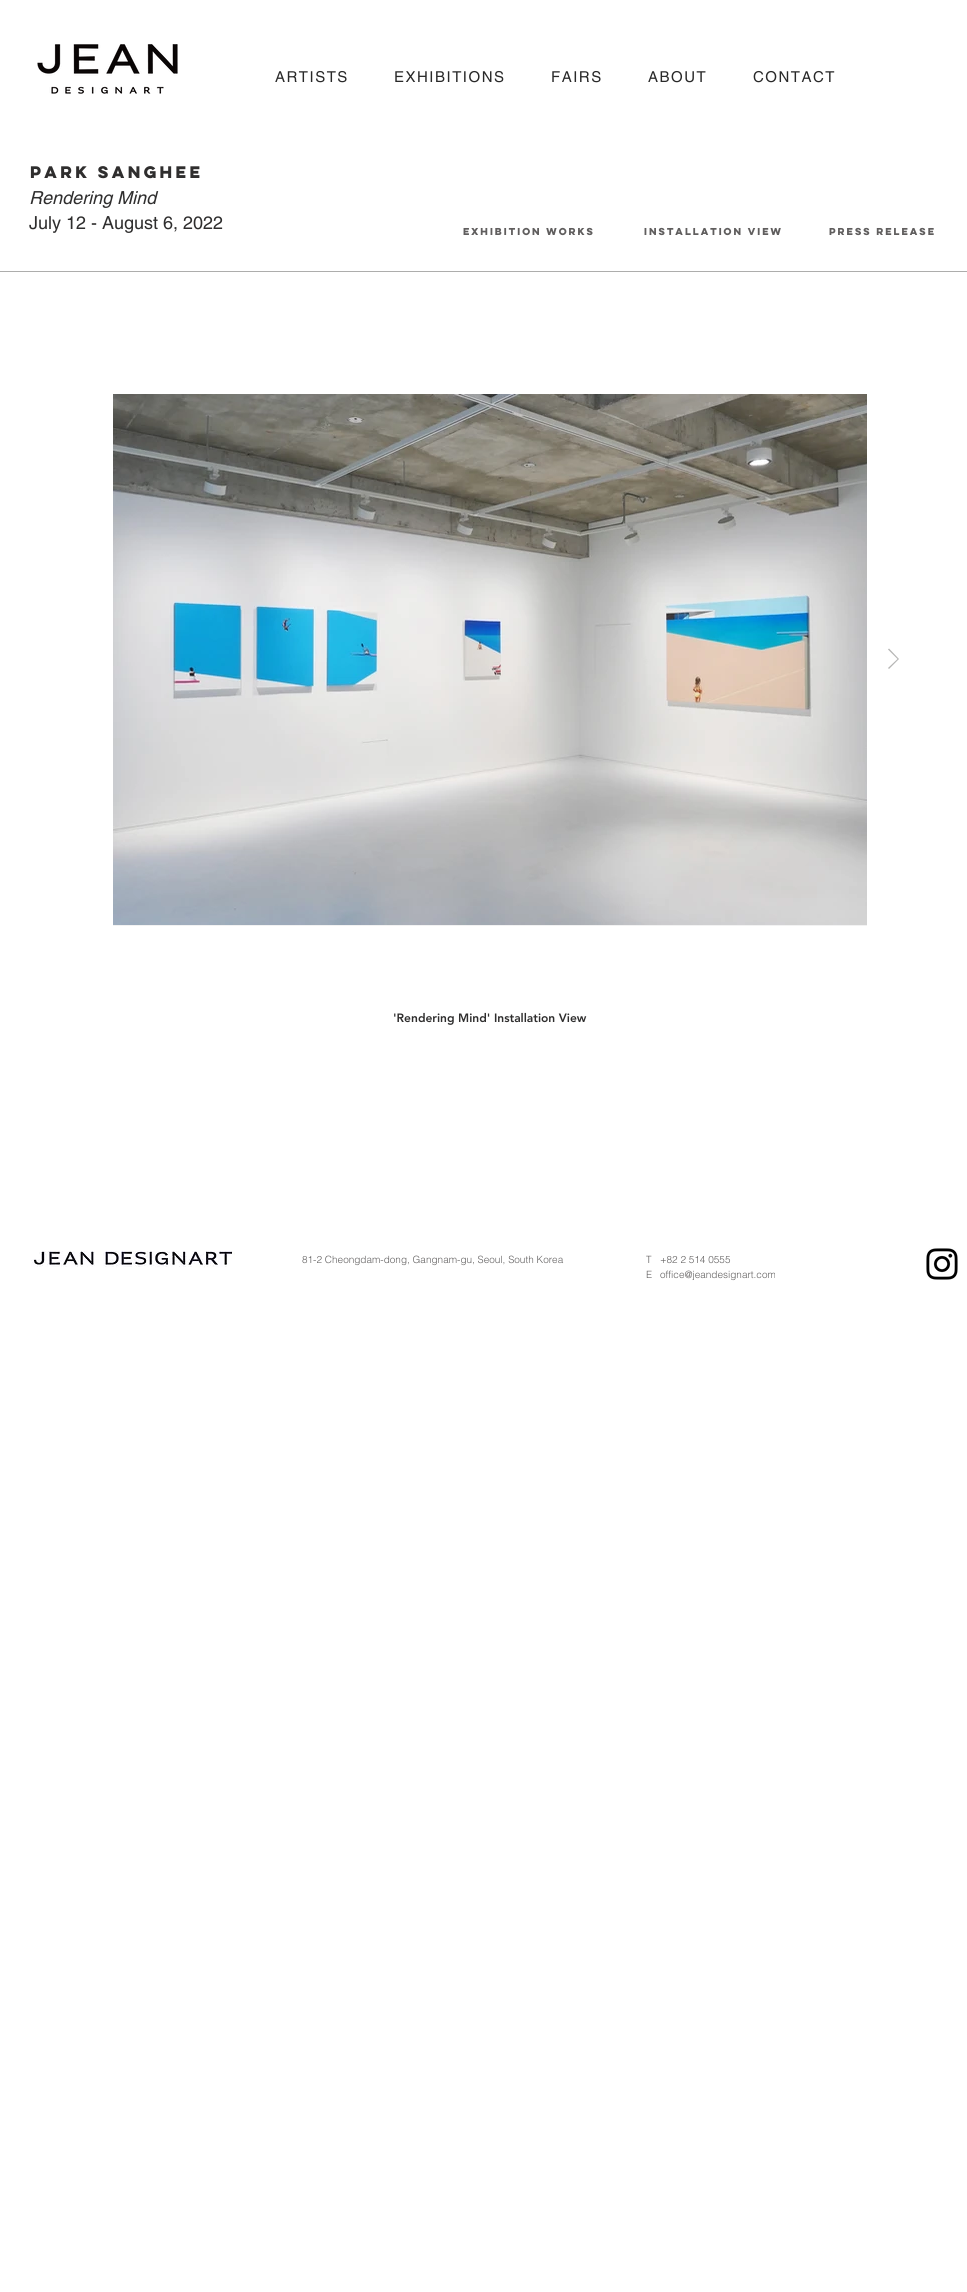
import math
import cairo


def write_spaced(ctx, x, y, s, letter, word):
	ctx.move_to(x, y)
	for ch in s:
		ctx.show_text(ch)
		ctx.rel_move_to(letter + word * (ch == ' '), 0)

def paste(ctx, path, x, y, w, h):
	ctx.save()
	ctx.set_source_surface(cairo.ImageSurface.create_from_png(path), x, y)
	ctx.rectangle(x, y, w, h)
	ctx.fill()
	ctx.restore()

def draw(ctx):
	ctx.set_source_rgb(1, 1, 1)
	ctx.paint()
	paste(ctx, 'media/1.png', 37, 44, 141, 50)
	ctx.select_font_face('helvetica')
	ctx.set_font_size(15)
	ctx.set_source_rgb(0.161, 0.161, 0.161)
	for x, y, s in [
		(275, 82, 'ARTISTS'),
		(394, 82, 'EXHIBITIONS'),
		(551, 82, 'FAIRS'),
		(648, 82, 'ABOUT'),
		(753, 82, 'CONTACT'),
	]:
		write_spaced(ctx, x, y, s, 1.5, 0)
	ctx.select_font_face('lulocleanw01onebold', cairo.FONT_SLANT_NORMAL, cairo.FONT_WEIGHT_BOLD)
	ctx.set_source_rgb(0.184, 0.18, 0.18)
	ctx.move_to(30, 178)
	ctx.show_text('park sanghee')
	ctx.select_font_face('helvetica', cairo.FONT_SLANT_ITALIC)
	ctx.set_font_size(18)
	ctx.move_to(29, 204)
	ctx.show_text('Rendering Mind')
	ctx.select_font_face('helvetica')
	ctx.move_to(29, 229)
	ctx.show_text('July 12 - August 6, 2022')
	ctx.select_font_face('lulocleanw01onebold', cairo.FONT_SLANT_NORMAL, cairo.FONT_WEIGHT_BOLD)
	ctx.set_font_size(9)
	ctx.set_source_rgb(0.376, 0.369, 0.369)
	for x, y, s in [
		(463, 235, 'exhibition works'),
		(644, 235, 'installation view'),
		(829, 235, 'press release'),
	]:
		ctx.move_to(x, y)
		ctx.show_text(s)
	ctx.set_source_rgb(0.678, 0.678, 0.675)
	ctx.rectangle(0, 271, 967, 1)
	ctx.fill()
	ctx.set_source_rgb(0.71, 0.71, 0.706)
	ctx.new_path()
	ctx.move_to(888, 649.5)
	ctx.line_to(889, 648.5)
	ctx.line_to(899, 659)
	ctx.line_to(889, 669)
	ctx.line_to(888, 668)
	ctx.line_to(897.5, 659)
	ctx.close_path()
	ctx.fill()
	ctx.set_source_rgb(0.949, 0.949, 0.949)
	ctx.rectangle(113, 925, 754, 1)
	ctx.fill()
	paste(ctx, 'media/2.png', 113, 394, 754, 531)
	ctx.select_font_face('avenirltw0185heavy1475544 Black')
	ctx.set_font_size(12)
	ctx.set_source_rgb(0.184, 0.18, 0.18)
	ctx.move_to(393, 1022)
	ctx.show_text('\'Rendering Mind\' Installation View')
	paste(ctx, 'media/3.png', 31, 1251, 204, 17)
	ctx.select_font_face('helvetica Light')
	ctx.set_font_size(10)
	ctx.set_source_rgb(0.376, 0.369, 0.369)
	for x, y, s in [
		(302, 1263, '81-2 Cheongdam-dong, Gangnam-gu, Seoul, South Korea'),
		(646, 1263, 'T   +82 2 514 0555'),
		(646, 1278, 'E'),
		(660, 1278, 'office@jeandesignart.com'),
	]:
		ctx.move_to(x, y)
		ctx.show_text(s)
	paste(ctx, 'media/4.png', 926, 1248, 32, 32)


surface = cairo.ImageSurface(cairo.FORMAT_RGB24, 967, 2292)
ctx = cairo.Context(surface)
options = cairo.FontOptions()
options.set_hint_metrics(cairo.HINT_METRICS_OFF)
options.set_hint_style(cairo.HINT_STYLE_NONE)
ctx.set_font_options(options)
ctx.set_miter_limit(4)
draw(ctx)
surface.write_to_png('image.png')
